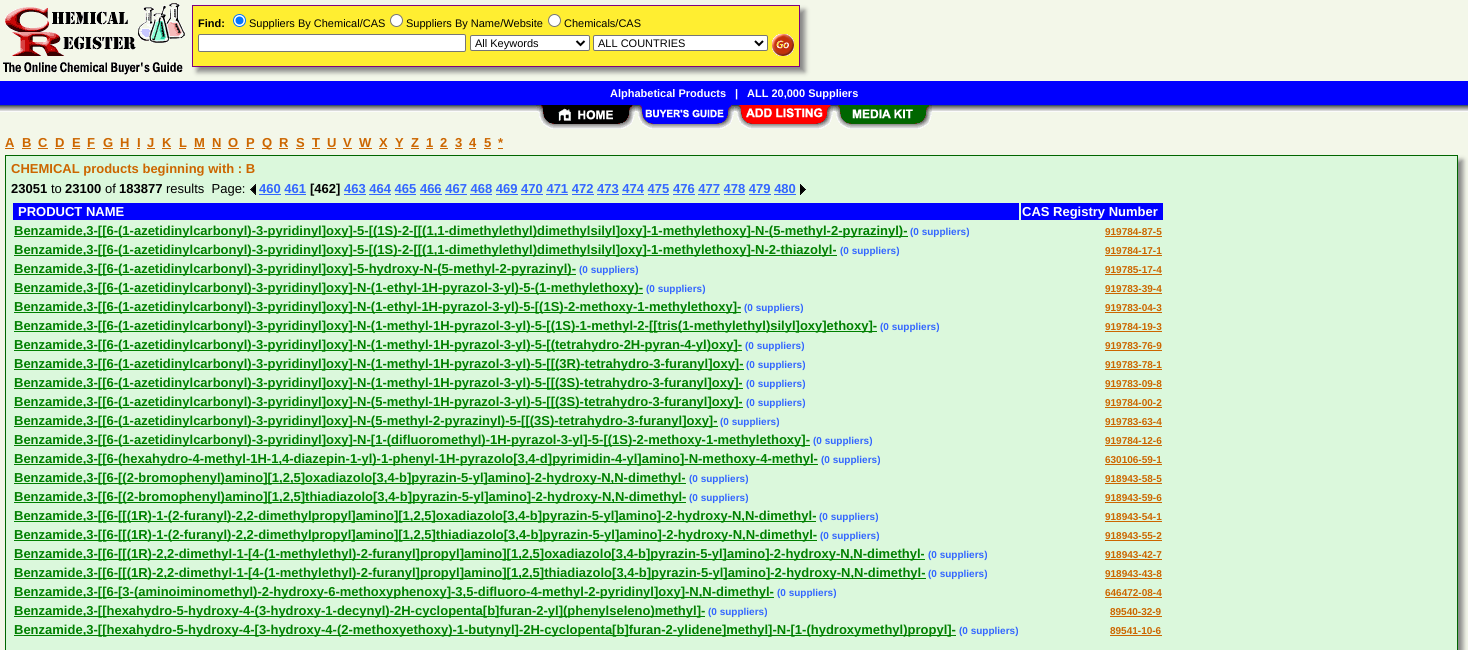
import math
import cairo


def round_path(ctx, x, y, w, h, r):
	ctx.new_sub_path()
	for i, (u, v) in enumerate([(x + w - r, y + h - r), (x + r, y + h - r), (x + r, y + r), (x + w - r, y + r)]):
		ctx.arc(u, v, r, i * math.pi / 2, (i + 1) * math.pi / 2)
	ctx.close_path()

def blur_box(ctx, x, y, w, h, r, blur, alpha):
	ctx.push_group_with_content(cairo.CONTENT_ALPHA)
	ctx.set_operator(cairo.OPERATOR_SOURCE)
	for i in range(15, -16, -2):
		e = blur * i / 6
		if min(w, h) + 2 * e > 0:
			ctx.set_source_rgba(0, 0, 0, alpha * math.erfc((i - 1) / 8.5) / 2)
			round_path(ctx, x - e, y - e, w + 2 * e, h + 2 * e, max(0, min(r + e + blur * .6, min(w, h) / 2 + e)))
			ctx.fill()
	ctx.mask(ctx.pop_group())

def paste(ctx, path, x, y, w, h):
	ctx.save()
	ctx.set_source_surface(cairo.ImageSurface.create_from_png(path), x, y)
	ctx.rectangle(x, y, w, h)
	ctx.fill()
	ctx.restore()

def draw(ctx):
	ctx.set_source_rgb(0.953, 0.965, 0.914)
	ctx.paint()
	paste(ctx, 'media/1.png', 3, 3, 182, 72)
	ctx.set_source_rgb(0.533, 0.533, 0.533)
	blur_box(ctx, 197, 10, 608, 62, 0, 2.5, 1)
	ctx.set_source_rgb(1, 0.933, 0.192)
	ctx.rectangle(192.5, 5.5, 607, 61)
	ctx.fill_preserve()
	ctx.set_source_rgb(0.502, 0, 0.502)
	ctx.set_line_width(1)
	ctx.stroke()
	ctx.select_font_face('Liberation Sans', cairo.FONT_SLANT_NORMAL, cairo.FONT_WEIGHT_BOLD)
	ctx.set_font_size(11)
	ctx.set_source_rgb(0, 0, 0)
	ctx.move_to(198, 27)
	ctx.show_text('Find:')
	ctx.set_source_rgb(1, 1, 1)
	ctx.new_path()
	ctx.arc(239.5, 20.5, 6, 0, 2 * math.pi)
	ctx.fill_preserve()
	ctx.set_source_rgb(0, 0.459, 1)
	ctx.stroke()
	ctx.arc(239.5, 20.5, 4, 0, 2 * math.pi)
	ctx.fill()
	ctx.select_font_face('Liberation Sans')
	ctx.set_source_rgb(0, 0, 0)
	ctx.move_to(249, 27)
	ctx.show_text('Suppliers By Chemical/CAS')
	ctx.set_source_rgb(1, 1, 1)
	ctx.new_path()
	ctx.arc(396.5, 20.5, 6, 0, 2 * math.pi)
	ctx.fill_preserve()
	ctx.set_source_rgb(0.463, 0.463, 0.463)
	ctx.stroke()
	ctx.set_source_rgb(0, 0, 0)
	ctx.move_to(406, 27)
	ctx.show_text('Suppliers By Name/Website')
	ctx.set_source_rgb(1, 1, 1)
	ctx.new_path()
	ctx.arc(554.5, 20.5, 6, 0, 2 * math.pi)
	ctx.fill_preserve()
	ctx.set_source_rgb(0.463, 0.463, 0.463)
	ctx.stroke()
	ctx.set_source_rgb(0, 0, 0)
	ctx.move_to(564, 27)
	ctx.show_text('Chemicals/CAS')
	ctx.set_source_rgb(1, 1, 1)
	round_path(ctx, 198.5, 34.5, 267, 17, 1.5)
	ctx.fill_preserve()
	ctx.set_source_rgb(0.463, 0.463, 0.463)
	ctx.stroke()
	ctx.set_source_rgb(1, 1, 1)
	round_path(ctx, 470.5, 35.5, 119, 15, 1.5)
	ctx.fill_preserve()
	ctx.set_source_rgb(0.463, 0.463, 0.463)
	ctx.stroke()
	ctx.new_path()
	ctx.move_to(576.5, 41)
	ctx.line_to(580.5, 45)
	ctx.line_to(584.5, 41)
	ctx.set_source_rgb(0, 0, 0)
	ctx.set_line_width(2)
	ctx.stroke()
	ctx.move_to(475, 47)
	ctx.show_text('All Keywords')
	ctx.set_source_rgb(1, 1, 1)
	round_path(ctx, 593.5, 35.5, 174, 15, 1.5)
	ctx.fill_preserve()
	ctx.set_source_rgb(0.463, 0.463, 0.463)
	ctx.set_line_width(1)
	ctx.stroke()
	ctx.new_path()
	ctx.move_to(755, 41)
	ctx.line_to(759, 45)
	ctx.line_to(763, 41)
	ctx.set_source_rgb(0, 0, 0)
	ctx.set_line_width(2)
	ctx.stroke()
	ctx.move_to(598, 47)
	ctx.show_text('ALL COUNTRIES')
	paste(ctx, 'media/2.png', 772, 34, 22, 22)
	ctx.set_source_rgb(0, 0, 1)
	ctx.rectangle(0, 81, 1468, 24)
	ctx.fill()
	ctx.select_font_face('Liberation Sans', cairo.FONT_SLANT_NORMAL, cairo.FONT_WEIGHT_BOLD)
	ctx.set_source_rgb(1, 1, 1)
	for x, y, s in [
		(610, 97, 'Alphabetical Products'),
		(735, 97, '|'),
		(747, 97, 'ALL 20,000 Suppliers'),
	]:
		ctx.move_to(x, y)
		ctx.show_text(s)
	paste(ctx, 'media/3.png', 0, 105, 1468, 7)
	paste(ctx, 'media/4.png', 536, 105, 99, 24)
	paste(ctx, 'media/5.png', 635, 105, 99, 24)
	paste(ctx, 'media/6.png', 734, 105, 99, 24)
	paste(ctx, 'media/7.png', 833, 105, 99, 24)
	ctx.set_font_size(13)
	ctx.set_source_rgb(0.8, 0.4, 0)
	ctx.move_to(5, 147)
	ctx.show_text('A')
	ctx.rectangle(5, 148, 9, 1)
	ctx.fill()
	ctx.move_to(22, 147)
	ctx.show_text('B')
	ctx.rectangle(22, 148, 9, 1)
	ctx.fill()
	ctx.move_to(38, 147)
	ctx.show_text('C')
	ctx.rectangle(38, 148, 10, 1)
	ctx.fill()
	ctx.move_to(55, 147)
	ctx.show_text('D')
	ctx.rectangle(55, 148, 9, 1)
	ctx.fill()
	ctx.move_to(72, 147)
	ctx.show_text('E')
	ctx.rectangle(72, 148, 8, 1)
	ctx.fill()
	ctx.move_to(87, 147)
	ctx.show_text('F')
	ctx.rectangle(87, 148, 8, 1)
	ctx.fill()
	ctx.move_to(103, 147)
	ctx.show_text('G')
	ctx.rectangle(103, 148, 10, 1)
	ctx.fill()
	ctx.move_to(120, 147)
	ctx.show_text('H')
	ctx.rectangle(120, 148, 9, 1)
	ctx.fill()
	ctx.move_to(137, 147)
	ctx.show_text('I')
	ctx.rectangle(137, 148, 3, 1)
	ctx.fill()
	ctx.move_to(147, 147)
	ctx.show_text('J')
	ctx.rectangle(147, 148, 8, 1)
	ctx.fill()
	ctx.move_to(162, 147)
	ctx.show_text('K')
	ctx.rectangle(162, 148, 9, 1)
	ctx.fill()
	ctx.move_to(179, 147)
	ctx.show_text('L')
	ctx.rectangle(179, 148, 7, 1)
	ctx.fill()
	ctx.move_to(194, 147)
	ctx.show_text('M')
	ctx.rectangle(194, 148, 11, 1)
	ctx.fill()
	ctx.move_to(212, 147)
	ctx.show_text('N')
	ctx.rectangle(212, 148, 9, 1)
	ctx.fill()
	ctx.move_to(228, 147)
	ctx.show_text('O')
	ctx.rectangle(228, 148, 11, 1)
	ctx.fill()
	ctx.move_to(246, 147)
	ctx.show_text('P')
	ctx.rectangle(246, 148, 8, 1)
	ctx.fill()
	ctx.rectangle(262, 148, 10, 1)
	ctx.fill()
	ctx.move_to(262, 147)
	ctx.show_text('Q')
	ctx.move_to(279, 147)
	ctx.show_text('R')
	ctx.rectangle(279, 148, 9, 1)
	ctx.fill()
	ctx.move_to(296, 147)
	ctx.show_text('S')
	ctx.rectangle(296, 148, 8, 1)
	ctx.fill()
	ctx.move_to(312, 147)
	ctx.show_text('T')
	ctx.rectangle(312, 148, 8, 1)
	ctx.fill()
	ctx.move_to(327, 147)
	ctx.show_text('U')
	ctx.rectangle(327, 148, 9, 1)
	ctx.fill()
	ctx.move_to(343, 147)
	ctx.show_text('V')
	ctx.rectangle(343, 148, 9, 1)
	ctx.fill()
	ctx.move_to(359, 147)
	ctx.show_text('W')
	ctx.rectangle(359, 148, 13, 1)
	ctx.fill()
	ctx.move_to(379, 147)
	ctx.show_text('X')
	ctx.rectangle(379, 148, 8, 1)
	ctx.fill()
	ctx.move_to(395, 147)
	ctx.show_text('Y')
	ctx.rectangle(395, 148, 8, 1)
	ctx.fill()
	ctx.move_to(411, 147)
	ctx.show_text('Z')
	ctx.rectangle(411, 148, 8, 1)
	ctx.fill()
	ctx.move_to(426, 147)
	ctx.show_text('1')
	ctx.rectangle(426, 148, 7, 1)
	ctx.fill()
	ctx.move_to(440, 147)
	ctx.show_text('2')
	ctx.rectangle(440, 148, 8, 1)
	ctx.fill()
	ctx.move_to(455, 147)
	ctx.show_text('3')
	ctx.rectangle(455, 148, 7, 1)
	ctx.fill()
	ctx.move_to(469, 147)
	ctx.show_text('4')
	ctx.rectangle(469, 148, 7, 1)
	ctx.fill()
	ctx.move_to(484, 147)
	ctx.show_text('5')
	ctx.rectangle(484, 148, 7, 1)
	ctx.fill()
	ctx.move_to(498, 147)
	ctx.show_text('*')
	ctx.rectangle(498, 148, 5, 1)
	ctx.fill()
	ctx.set_source_rgb(0.533, 0.533, 0.533)
	blur_box(ctx, 10, 160, 1453, 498, 0, 2.5, 1)
	ctx.set_source_rgb(0.859, 0.969, 0.863)
	ctx.rectangle(5.5, 155.5, 1452, 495)
	ctx.fill_preserve()
	ctx.set_source_rgb(0, 0.4, 0)
	ctx.set_line_width(1)
	ctx.stroke()
	ctx.set_source_rgb(0.8, 0.4, 0)
	ctx.move_to(11, 173)
	ctx.show_text('CHEMICAL products beginning with : B')
	ctx.set_source_rgb(0, 0, 0)
	ctx.move_to(11, 193)
	ctx.show_text('23051')
	ctx.select_font_face('Liberation Sans')
	ctx.move_to(51, 193)
	ctx.show_text('to')
	ctx.select_font_face('Liberation Sans', cairo.FONT_SLANT_NORMAL, cairo.FONT_WEIGHT_BOLD)
	ctx.move_to(65, 193)
	ctx.show_text('23100')
	ctx.select_font_face('Liberation Sans')
	ctx.move_to(105, 193)
	ctx.show_text('of')
	ctx.select_font_face('Liberation Sans', cairo.FONT_SLANT_NORMAL, cairo.FONT_WEIGHT_BOLD)
	ctx.move_to(119, 193)
	ctx.show_text('183877')
	ctx.select_font_face('Liberation Sans')
	ctx.move_to(166, 193)
	ctx.show_text('results  Page:')
	paste(ctx, 'media/8.png', 250, 184, 6, 11)
	ctx.select_font_face('Liberation Sans', cairo.FONT_SLANT_NORMAL, cairo.FONT_WEIGHT_BOLD)
	ctx.set_source_rgb(0.2, 0.4, 1)
	ctx.move_to(259, 193)
	ctx.show_text('460 461')
	ctx.rectangle(259, 194, 22, 1)
	ctx.fill()
	ctx.set_source_rgb(0, 0, 0)
	ctx.move_to(310, 193)
	ctx.show_text('[462]')
	ctx.set_source_rgb(0.2, 0.4, 1)
	ctx.move_to(344, 193)
	ctx.show_text('463 464 465 466 467 468 469 470 471 472 473 474 475 476 477 478 479 480')
	ctx.rectangle(344, 194, 22, 1)
	ctx.fill()
	paste(ctx, 'media/9.png', 800, 184, 6, 11)
	ctx.rectangle(285, 194, 21, 1)
	ctx.rectangle(369, 194, 22, 1)
	ctx.rectangle(395, 194, 21, 1)
	ctx.rectangle(420, 194, 22, 1)
	ctx.rectangle(445, 194, 22, 1)
	ctx.rectangle(470, 194, 22, 1)
	ctx.rectangle(496, 194, 22, 1)
	ctx.rectangle(521, 194, 22, 1)
	ctx.rectangle(546, 194, 22, 1)
	ctx.rectangle(572, 194, 22, 1)
	ctx.rectangle(597, 194, 22, 1)
	ctx.rectangle(622, 194, 22, 1)
	ctx.rectangle(648, 194, 21, 1)
	ctx.rectangle(673, 194, 22, 1)
	ctx.rectangle(698, 194, 22, 1)
	ctx.rectangle(724, 194, 21, 1)
	ctx.rectangle(749, 194, 22, 1)
	ctx.rectangle(774, 194, 22, 1)
	ctx.fill()
	ctx.set_source_rgb(0, 0, 1)
	ctx.rectangle(13, 203, 1006, 17)
	ctx.fill()
	ctx.set_source_rgb(1, 1, 1)
	ctx.move_to(18, 216)
	ctx.show_text('PRODUCT NAME')
	ctx.set_source_rgb(0, 0, 1)
	ctx.rectangle(1021, 203, 142, 17)
	ctx.fill()
	ctx.set_source_rgb(1, 1, 1)
	ctx.move_to(1022, 216)
	ctx.show_text('CAS Registry Number')
	ctx.set_source_rgb(0, 0.502, 0)
	ctx.rectangle(14, 236, 894, 1)
	ctx.fill()
	ctx.move_to(14, 235)
	ctx.show_text('Benzamide,3-[[6-(1-azetidinylcarbonyl)-3-pyridinyl]oxy]-5-[(1S)-2-[[(1,1-dimethylethyl)dimethylsilyl]oxy]-1-methylethoxy]-N-(5-methyl-2-pyrazinyl)-')
	ctx.set_font_size(10)
	ctx.set_source_rgb(0.2, 0.4, 1)
	ctx.move_to(910, 235)
	ctx.show_text('(0 suppliers)')
	ctx.set_source_rgb(0.8, 0.4, 0)
	ctx.move_to(1105, 235)
	ctx.show_text('919784-87-5')
	ctx.rectangle(1105, 236, 57, 1)
	ctx.fill()
	ctx.set_source_rgb(0, 0.502, 0)
	ctx.rectangle(14, 255, 823, 1)
	ctx.fill()
	ctx.set_font_size(13)
	ctx.move_to(14, 254)
	ctx.show_text('Benzamide,3-[[6-(1-azetidinylcarbonyl)-3-pyridinyl]oxy]-5-[(1S)-2-[[(1,1-dimethylethyl)dimethylsilyl]oxy]-1-methylethoxy]-N-2-thiazolyl-')
	ctx.set_font_size(10)
	ctx.set_source_rgb(0.2, 0.4, 1)
	ctx.move_to(840, 254)
	ctx.show_text('(0 suppliers)')
	ctx.set_source_rgb(0.8, 0.4, 0)
	ctx.move_to(1105, 254)
	ctx.show_text('919784-17-1')
	ctx.rectangle(1105, 255, 57, 1)
	ctx.fill()
	ctx.set_source_rgb(0, 0.502, 0)
	ctx.rectangle(14, 274, 562, 1)
	ctx.fill()
	ctx.set_font_size(13)
	ctx.move_to(14, 273)
	ctx.show_text('Benzamide,3-[[6-(1-azetidinylcarbonyl)-3-pyridinyl]oxy]-5-hydroxy-N-(5-methyl-2-pyrazinyl)-')
	ctx.set_font_size(10)
	ctx.set_source_rgb(0.2, 0.4, 1)
	ctx.move_to(579, 273)
	ctx.show_text('(0 suppliers)')
	ctx.set_source_rgb(0.8, 0.4, 0)
	ctx.move_to(1105, 273)
	ctx.show_text('919785-17-4')
	ctx.rectangle(1105, 274, 57, 1)
	ctx.fill()
	ctx.set_source_rgb(0, 0.502, 0)
	ctx.rectangle(14, 293, 629, 1)
	ctx.fill()
	ctx.set_font_size(13)
	ctx.move_to(14, 292)
	ctx.show_text('Benzamide,3-[[6-(1-azetidinylcarbonyl)-3-pyridinyl]oxy]-N-(1-ethyl-1H-pyrazol-3-yl)-5-(1-methylethoxy)-')
	ctx.set_font_size(10)
	ctx.set_source_rgb(0.2, 0.4, 1)
	ctx.move_to(646, 292)
	ctx.show_text('(0 suppliers)')
	ctx.set_source_rgb(0.8, 0.4, 0)
	ctx.move_to(1105, 292)
	ctx.show_text('919783-39-4')
	ctx.rectangle(1105, 293, 57, 1)
	ctx.fill()
	ctx.set_source_rgb(0, 0.502, 0)
	ctx.rectangle(14, 312, 727, 1)
	ctx.fill()
	ctx.set_font_size(13)
	ctx.move_to(14, 311)
	ctx.show_text('Benzamide,3-[[6-(1-azetidinylcarbonyl)-3-pyridinyl]oxy]-N-(1-ethyl-1H-pyrazol-3-yl)-5-[(1S)-2-methoxy-1-methylethoxy]-')
	ctx.set_font_size(10)
	ctx.set_source_rgb(0.2, 0.4, 1)
	ctx.move_to(744, 311)
	ctx.show_text('(0 suppliers)')
	ctx.set_source_rgb(0.8, 0.4, 0)
	ctx.move_to(1105, 311)
	ctx.show_text('919783-04-3')
	ctx.rectangle(1105, 312, 57, 1)
	ctx.fill()
	ctx.set_source_rgb(0, 0.502, 0)
	ctx.rectangle(14, 331, 863, 1)
	ctx.fill()
	ctx.set_font_size(13)
	ctx.move_to(14, 330)
	ctx.show_text('Benzamide,3-[[6-(1-azetidinylcarbonyl)-3-pyridinyl]oxy]-N-(1-methyl-1H-pyrazol-3-yl)-5-[(1S)-1-methyl-2-[[tris(1-methylethyl)silyl]oxy]ethoxy]-')
	ctx.set_font_size(10)
	ctx.set_source_rgb(0.2, 0.4, 1)
	ctx.move_to(880, 330)
	ctx.show_text('(0 suppliers)')
	ctx.set_source_rgb(0.8, 0.4, 0)
	ctx.move_to(1105, 330)
	ctx.show_text('919784-19-3')
	ctx.rectangle(1105, 331, 57, 1)
	ctx.fill()
	ctx.set_source_rgb(0, 0.502, 0)
	ctx.rectangle(14, 350, 728, 1)
	ctx.fill()
	ctx.set_font_size(13)
	ctx.move_to(14, 349)
	ctx.show_text('Benzamide,3-[[6-(1-azetidinylcarbonyl)-3-pyridinyl]oxy]-N-(1-methyl-1H-pyrazol-3-yl)-5-[(tetrahydro-2H-pyran-4-yl)oxy]-')
	ctx.set_font_size(10)
	ctx.set_source_rgb(0.2, 0.4, 1)
	ctx.move_to(745, 349)
	ctx.show_text('(0 suppliers)')
	ctx.set_source_rgb(0.8, 0.4, 0)
	ctx.move_to(1105, 349)
	ctx.show_text('919783-76-9')
	ctx.rectangle(1105, 350, 57, 1)
	ctx.fill()
	ctx.set_source_rgb(0, 0.502, 0)
	ctx.rectangle(14, 369, 730, 1)
	ctx.fill()
	ctx.set_font_size(13)
	ctx.move_to(14, 368)
	ctx.show_text('Benzamide,3-[[6-(1-azetidinylcarbonyl)-3-pyridinyl]oxy]-N-(1-methyl-1H-pyrazol-3-yl)-5-[[(3R)-tetrahydro-3-furanyl]oxy]-')
	ctx.set_font_size(10)
	ctx.set_source_rgb(0.2, 0.4, 1)
	ctx.move_to(746, 368)
	ctx.show_text('(0 suppliers)')
	ctx.set_source_rgb(0.8, 0.4, 0)
	ctx.move_to(1105, 368)
	ctx.show_text('919783-78-1')
	ctx.rectangle(1105, 369, 57, 1)
	ctx.fill()
	ctx.set_source_rgb(0, 0.502, 0)
	ctx.rectangle(14, 388, 729, 1)
	ctx.fill()
	ctx.set_font_size(13)
	ctx.move_to(14, 387)
	ctx.show_text('Benzamide,3-[[6-(1-azetidinylcarbonyl)-3-pyridinyl]oxy]-N-(1-methyl-1H-pyrazol-3-yl)-5-[[(3S)-tetrahydro-3-furanyl]oxy]-')
	ctx.set_font_size(10)
	ctx.set_source_rgb(0.2, 0.4, 1)
	ctx.move_to(746, 387)
	ctx.show_text('(0 suppliers)')
	ctx.set_source_rgb(0.8, 0.4, 0)
	ctx.move_to(1105, 387)
	ctx.show_text('919783-09-8')
	ctx.rectangle(1105, 388, 57, 1)
	ctx.fill()
	ctx.set_source_rgb(0, 0.502, 0)
	ctx.rectangle(14, 407, 729, 1)
	ctx.fill()
	ctx.set_font_size(13)
	ctx.move_to(14, 406)
	ctx.show_text('Benzamide,3-[[6-(1-azetidinylcarbonyl)-3-pyridinyl]oxy]-N-(5-methyl-1H-pyrazol-3-yl)-5-[[(3S)-tetrahydro-3-furanyl]oxy]-')
	ctx.set_font_size(10)
	ctx.set_source_rgb(0.2, 0.4, 1)
	ctx.move_to(746, 406)
	ctx.show_text('(0 suppliers)')
	ctx.set_source_rgb(0.8, 0.4, 0)
	ctx.move_to(1105, 406)
	ctx.show_text('919784-00-2')
	ctx.rectangle(1105, 407, 57, 1)
	ctx.fill()
	ctx.set_source_rgb(0, 0.502, 0)
	ctx.rectangle(14, 426, 704, 1)
	ctx.fill()
	ctx.set_font_size(13)
	ctx.move_to(14, 425)
	ctx.show_text('Benzamide,3-[[6-(1-azetidinylcarbonyl)-3-pyridinyl]oxy]-N-(5-methyl-2-pyrazinyl)-5-[[(3S)-tetrahydro-3-furanyl]oxy]-')
	ctx.set_font_size(10)
	ctx.set_source_rgb(0.2, 0.4, 1)
	ctx.move_to(720, 425)
	ctx.show_text('(0 suppliers)')
	ctx.set_source_rgb(0.8, 0.4, 0)
	ctx.move_to(1105, 425)
	ctx.show_text('919783-63-4')
	ctx.rectangle(1105, 426, 57, 1)
	ctx.fill()
	ctx.set_source_rgb(0, 0.502, 0)
	ctx.rectangle(14, 445, 796, 1)
	ctx.fill()
	ctx.set_font_size(13)
	ctx.move_to(14, 444)
	ctx.show_text('Benzamide,3-[[6-(1-azetidinylcarbonyl)-3-pyridinyl]oxy]-N-[1-(difluoromethyl)-1H-pyrazol-3-yl]-5-[(1S)-2-methoxy-1-methylethoxy]-')
	ctx.set_font_size(10)
	ctx.set_source_rgb(0.2, 0.4, 1)
	ctx.move_to(813, 444)
	ctx.show_text('(0 suppliers)')
	ctx.set_source_rgb(0.8, 0.4, 0)
	ctx.move_to(1105, 444)
	ctx.show_text('919784-12-6')
	ctx.rectangle(1105, 445, 57, 1)
	ctx.fill()
	ctx.set_source_rgb(0, 0.502, 0)
	ctx.rectangle(14, 464, 804, 1)
	ctx.fill()
	ctx.set_font_size(13)
	ctx.move_to(14, 463)
	ctx.show_text('Benzamide,3-[[6-(hexahydro-4-methyl-1H-1,4-diazepin-1-yl)-1-phenyl-1H-pyrazolo[3,4-d]pyrimidin-4-yl]amino]-N-methoxy-4-methyl-')
	ctx.set_font_size(10)
	ctx.set_source_rgb(0.2, 0.4, 1)
	ctx.move_to(821, 463)
	ctx.show_text('(0 suppliers)')
	ctx.set_source_rgb(0.8, 0.4, 0)
	ctx.move_to(1105, 463)
	ctx.show_text('630106-59-1')
	ctx.rectangle(1105, 464, 57, 1)
	ctx.fill()
	ctx.set_source_rgb(0, 0.502, 0)
	ctx.rectangle(14, 483, 672, 1)
	ctx.fill()
	ctx.set_font_size(13)
	ctx.move_to(14, 482)
	ctx.show_text('Benzamide,3-[[6-[(2-bromophenyl)amino][1,2,5]oxadiazolo[3,4-b]pyrazin-5-yl]amino]-2-hydroxy-N,N-dimethyl-')
	ctx.set_font_size(10)
	ctx.set_source_rgb(0.2, 0.4, 1)
	ctx.move_to(689, 482)
	ctx.show_text('(0 suppliers)')
	ctx.set_source_rgb(0.8, 0.4, 0)
	ctx.move_to(1105, 482)
	ctx.show_text('918943-58-5')
	ctx.rectangle(1105, 483, 57, 1)
	ctx.fill()
	ctx.set_source_rgb(0, 0.502, 0)
	ctx.rectangle(14, 502, 672, 1)
	ctx.fill()
	ctx.set_font_size(13)
	ctx.move_to(14, 501)
	ctx.show_text('Benzamide,3-[[6-[(2-bromophenyl)amino][1,2,5]thiadiazolo[3,4-b]pyrazin-5-yl]amino]-2-hydroxy-N,N-dimethyl-')
	ctx.set_font_size(10)
	ctx.set_source_rgb(0.2, 0.4, 1)
	ctx.move_to(689, 501)
	ctx.show_text('(0 suppliers)')
	ctx.set_source_rgb(0.8, 0.4, 0)
	ctx.move_to(1105, 501)
	ctx.show_text('918943-59-6')
	ctx.rectangle(1105, 502, 57, 1)
	ctx.fill()
	ctx.set_source_rgb(0, 0.502, 0)
	ctx.rectangle(14, 521, 802, 1)
	ctx.fill()
	ctx.set_font_size(13)
	ctx.move_to(14, 520)
	ctx.show_text('Benzamide,3-[[6-[[(1R)-1-(2-furanyl)-2,2-dimethylpropyl]amino][1,2,5]oxadiazolo[3,4-b]pyrazin-5-yl]amino]-2-hydroxy-N,N-dimethyl-')
	ctx.set_font_size(10)
	ctx.set_source_rgb(0.2, 0.4, 1)
	ctx.move_to(819, 520)
	ctx.show_text('(0 suppliers)')
	ctx.set_source_rgb(0.8, 0.4, 0)
	ctx.move_to(1105, 520)
	ctx.show_text('918943-54-1')
	ctx.rectangle(1105, 521, 57, 1)
	ctx.fill()
	ctx.set_source_rgb(0, 0.502, 0)
	ctx.rectangle(14, 540, 803, 1)
	ctx.fill()
	ctx.set_font_size(13)
	ctx.move_to(14, 539)
	ctx.show_text('Benzamide,3-[[6-[[(1R)-1-(2-furanyl)-2,2-dimethylpropyl]amino][1,2,5]thiadiazolo[3,4-b]pyrazin-5-yl]amino]-2-hydroxy-N,N-dimethyl-')
	ctx.set_font_size(10)
	ctx.set_source_rgb(0.2, 0.4, 1)
	ctx.move_to(820, 539)
	ctx.show_text('(0 suppliers)')
	ctx.set_source_rgb(0.8, 0.4, 0)
	ctx.move_to(1105, 539)
	ctx.show_text('918943-55-2')
	ctx.rectangle(1105, 540, 57, 1)
	ctx.fill()
	ctx.set_source_rgb(0, 0.502, 0)
	ctx.rectangle(14, 559, 911, 1)
	ctx.fill()
	ctx.set_font_size(13)
	ctx.move_to(14, 558)
	ctx.show_text('Benzamide,3-[[6-[[(1R)-2,2-dimethyl-1-[4-(1-methylethyl)-2-furanyl]propyl]amino][1,2,5]oxadiazolo[3,4-b]pyrazin-5-yl]amino]-2-hydroxy-N,N-dimethyl-')
	ctx.set_font_size(10)
	ctx.set_source_rgb(0.2, 0.4, 1)
	ctx.move_to(928, 558)
	ctx.show_text('(0 suppliers)')
	ctx.set_source_rgb(0.8, 0.4, 0)
	ctx.move_to(1105, 558)
	ctx.show_text('918943-42-7')
	ctx.rectangle(1105, 559, 57, 1)
	ctx.fill()
	ctx.set_source_rgb(0, 0.502, 0)
	ctx.rectangle(14, 578, 912, 1)
	ctx.fill()
	ctx.set_font_size(13)
	ctx.move_to(14, 577)
	ctx.show_text('Benzamide,3-[[6-[[(1R)-2,2-dimethyl-1-[4-(1-methylethyl)-2-furanyl]propyl]amino][1,2,5]thiadiazolo[3,4-b]pyrazin-5-yl]amino]-2-hydroxy-N,N-dimethyl-')
	ctx.set_font_size(10)
	ctx.set_source_rgb(0.2, 0.4, 1)
	ctx.move_to(928, 577)
	ctx.show_text('(0 suppliers)')
	ctx.set_source_rgb(0.8, 0.4, 0)
	ctx.move_to(1105, 577)
	ctx.show_text('918943-43-8')
	ctx.rectangle(1105, 578, 57, 1)
	ctx.fill()
	ctx.set_source_rgb(0, 0.502, 0)
	ctx.rectangle(14, 597, 760, 1)
	ctx.fill()
	ctx.set_font_size(13)
	ctx.move_to(14, 596)
	ctx.show_text('Benzamide,3-[[6-[3-(aminoiminomethyl)-2-hydroxy-6-methoxyphenoxy]-3,5-difluoro-4-methyl-2-pyridinyl]oxy]-N,N-dimethyl-')
	ctx.set_font_size(10)
	ctx.set_source_rgb(0.2, 0.4, 1)
	ctx.move_to(777, 596)
	ctx.show_text('(0 suppliers)')
	ctx.set_source_rgb(0.8, 0.4, 0)
	ctx.move_to(1105, 596)
	ctx.show_text('646472-08-4')
	ctx.rectangle(1105, 597, 57, 1)
	ctx.fill()
	ctx.set_source_rgb(0, 0.502, 0)
	ctx.rectangle(14, 616, 691, 1)
	ctx.fill()
	ctx.set_font_size(13)
	ctx.move_to(14, 615)
	ctx.show_text('Benzamide,3-[[hexahydro-5-hydroxy-4-(3-hydroxy-1-decynyl)-2H-cyclopenta[b]furan-2-yl](phenylseleno)methyl]-')
	ctx.set_font_size(10)
	ctx.set_source_rgb(0.2, 0.4, 1)
	ctx.move_to(708, 615)
	ctx.show_text('(0 suppliers)')
	ctx.set_source_rgb(0.8, 0.4, 0)
	ctx.move_to(1110, 615)
	ctx.show_text('89540-32-9')
	ctx.rectangle(1110, 616, 52, 1)
	ctx.fill()
	ctx.set_source_rgb(0, 0.502, 0)
	ctx.rectangle(14, 635, 942, 1)
	ctx.fill()
	ctx.set_font_size(13)
	ctx.move_to(14, 634)
	ctx.show_text('Benzamide,3-[[hexahydro-5-hydroxy-4-[3-hydroxy-4-(2-methoxyethoxy)-1-butynyl]-2H-cyclopenta[b]furan-2-ylidene]methyl]-N-[1-(hydroxymethyl)propyl]-')
	ctx.set_font_size(10)
	ctx.set_source_rgb(0.2, 0.4, 1)
	ctx.move_to(959, 634)
	ctx.show_text('(0 suppliers)')
	ctx.set_source_rgb(0.8, 0.4, 0)
	ctx.move_to(1110, 634)
	ctx.show_text('89541-10-6')
	ctx.rectangle(1110, 635, 52, 1)
	ctx.fill()


surface = cairo.ImageSurface(cairo.FORMAT_RGB24, 1468, 650)
ctx = cairo.Context(surface)
options = cairo.FontOptions()
options.set_hint_metrics(cairo.HINT_METRICS_OFF)
options.set_hint_style(cairo.HINT_STYLE_NONE)
ctx.set_font_options(options)
ctx.set_miter_limit(4)
draw(ctx)
surface.write_to_png('image.png')
